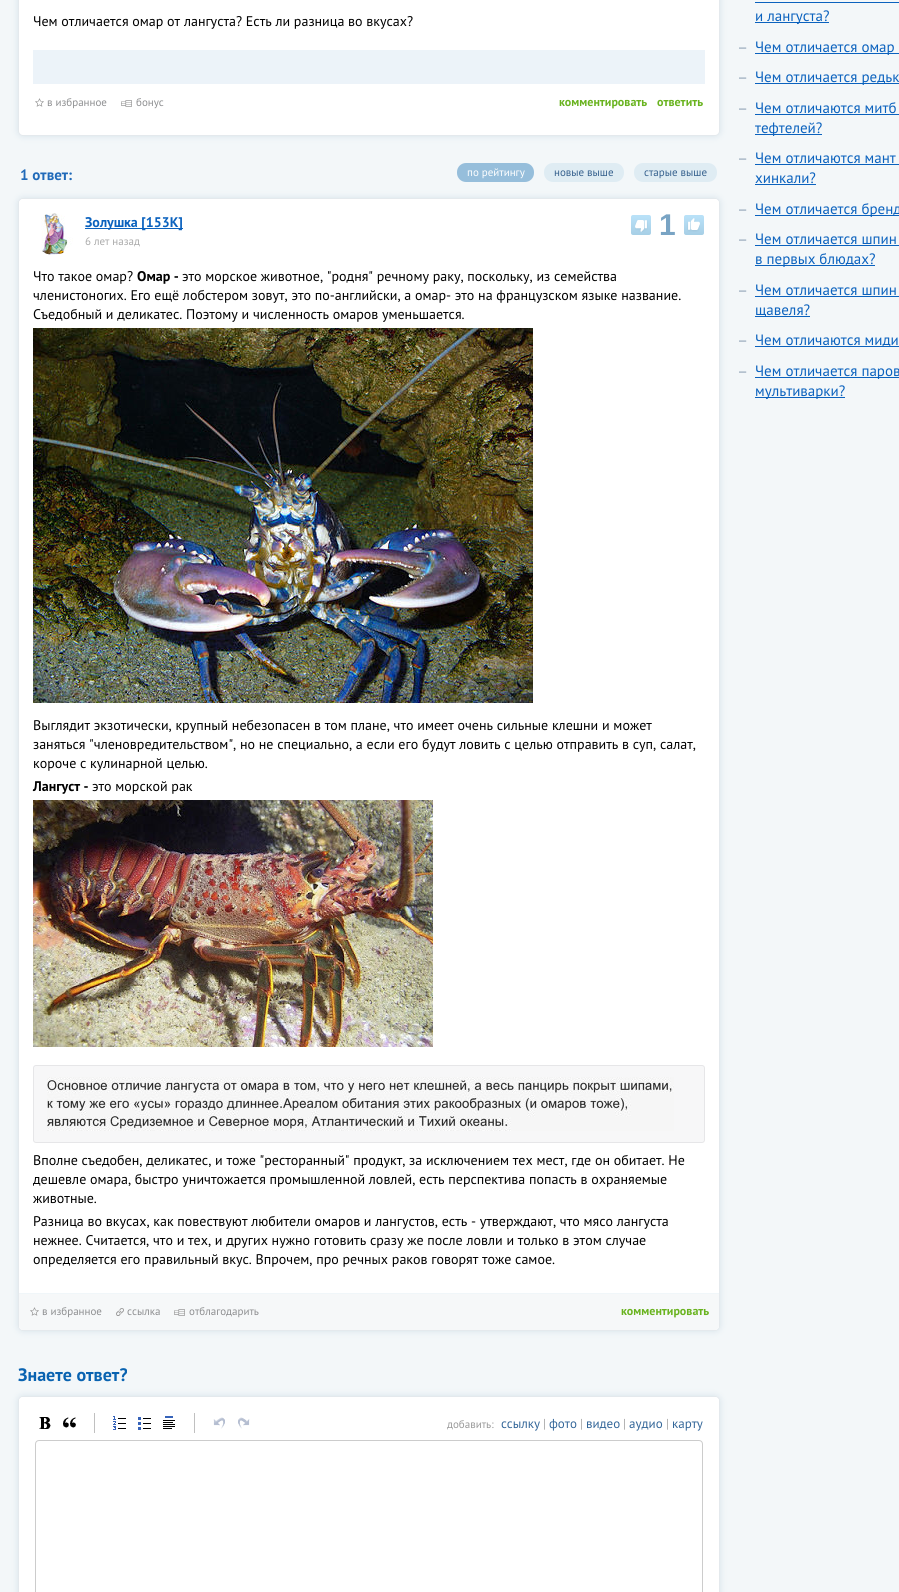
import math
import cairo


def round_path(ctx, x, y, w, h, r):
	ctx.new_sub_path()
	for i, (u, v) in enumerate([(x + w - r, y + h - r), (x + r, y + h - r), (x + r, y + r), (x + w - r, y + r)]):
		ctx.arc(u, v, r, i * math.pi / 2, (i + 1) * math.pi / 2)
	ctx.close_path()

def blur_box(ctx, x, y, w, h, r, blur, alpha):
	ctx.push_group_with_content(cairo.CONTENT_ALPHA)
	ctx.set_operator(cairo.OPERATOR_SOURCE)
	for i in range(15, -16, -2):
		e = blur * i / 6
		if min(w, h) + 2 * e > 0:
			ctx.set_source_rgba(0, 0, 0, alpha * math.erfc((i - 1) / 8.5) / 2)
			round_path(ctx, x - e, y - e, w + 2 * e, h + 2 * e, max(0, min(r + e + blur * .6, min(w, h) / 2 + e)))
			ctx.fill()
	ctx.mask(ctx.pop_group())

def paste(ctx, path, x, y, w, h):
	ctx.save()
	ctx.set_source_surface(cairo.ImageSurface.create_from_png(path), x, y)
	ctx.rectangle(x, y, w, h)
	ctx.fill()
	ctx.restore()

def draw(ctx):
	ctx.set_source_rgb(0.953, 0.965, 0.976)
	ctx.paint()
	ctx.set_source_rgb(0.306, 0.502, 0.659)
	blur_box(ctx, 18, -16, 702, 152, 5, 3.5, 0.18)
	ctx.set_source_rgb(1, 1, 1)
	round_path(ctx, 18, -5, 702, 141, 5)
	ctx.fill()
	round_path(ctx, 18.5, -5.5, 701, 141, 4.5)
	ctx.set_source_rgba(0.486, 0.588, 0.667, 0.21)
	ctx.set_line_width(1)
	ctx.stroke()
	ctx.select_font_face('PT Sans')
	ctx.set_font_size(14)
	ctx.set_source_rgb(0, 0, 0)
	ctx.move_to(33, 26)
	ctx.show_text('Чем отличается омар от лангуста? Есть ли разница во вкусах?')
	ctx.set_source_rgb(0.922, 0.953, 0.973)
	ctx.rectangle(33, 50, 672, 34)
	ctx.fill()
	paste(ctx, 'media/1.png', 35, 98, 9, 9)
	ctx.set_font_size(11)
	ctx.set_source_rgb(0.553, 0.557, 0.565)
	ctx.move_to(47, 106)
	ctx.show_text('в избранное')
	paste(ctx, 'media/2.png', 121, 100, 11, 7)
	ctx.move_to(136, 106)
	ctx.show_text('бонус')
	ctx.select_font_face('PT Sans', cairo.FONT_SLANT_NORMAL, cairo.FONT_WEIGHT_BOLD)
	ctx.set_font_size(12)
	ctx.set_source_rgb(0.412, 0.702, 0.122)
	ctx.move_to(559, 106)
	ctx.show_text('комментировать')
	ctx.move_to(657, 106)
	ctx.show_text('ответить')
	ctx.set_font_size(15)
	ctx.set_source_rgb(0.125, 0.416, 0.725)
	ctx.move_to(20, 180)
	ctx.show_text('1 ответ:')
	ctx.set_source_rgb(0.588, 0.745, 0.859)
	round_path(ctx, 457, 163, 77, 19, 9)
	ctx.fill()
	ctx.select_font_face('PT Sans')
	ctx.set_font_size(11)
	ctx.set_source_rgb(1, 1, 1)
	ctx.move_to(467, 176)
	ctx.show_text('по рейтингу')
	ctx.set_source_rgb(0.875, 0.922, 0.953)
	round_path(ctx, 544, 163, 80, 19, 9)
	ctx.fill()
	ctx.set_source_rgb(0.208, 0.376, 0.553)
	ctx.move_to(554, 176)
	ctx.show_text('новые выше')
	ctx.set_source_rgb(0.875, 0.922, 0.953)
	round_path(ctx, 634, 163, 83, 19, 9)
	ctx.fill()
	ctx.set_source_rgb(0.208, 0.376, 0.553)
	ctx.move_to(644, 176)
	ctx.show_text('старые выше')
	ctx.set_source_rgb(0.306, 0.502, 0.659)
	blur_box(ctx, 18, 198, 702, 1133, 5, 3.5, 0.18)
	ctx.set_source_rgb(1, 1, 1)
	round_path(ctx, 18, 198, 702, 1133, 5)
	ctx.fill()
	round_path(ctx, 18.5, 198.5, 701, 1132, 4.5)
	ctx.set_source_rgba(0.486, 0.588, 0.667, 0.21)
	ctx.stroke()
	ctx.set_source_rgb(1, 1, 1)
	ctx.new_path()
	ctx.move_to(23, 199)
	ctx.line_to(715, 199)
	ctx.curve_to(717, 199, 719, 201, 719, 203)
	ctx.line_to(719, 1293)
	ctx.line_to(19, 1293)
	ctx.line_to(19, 203)
	ctx.curve_to(19, 201, 21, 199, 23, 199)
	ctx.close_path()
	ctx.fill()
	paste(ctx, 'media/3.png', 41, 213, 32, 42)
	ctx.set_source_rgb(0.043, 0.384, 0.745)
	ctx.rectangle(85, 228, 39, 1)
	ctx.fill()
	ctx.select_font_face('PT Sans', cairo.FONT_SLANT_NORMAL, cairo.FONT_WEIGHT_BOLD)
	ctx.set_font_size(14)
	ctx.move_to(85, 227)
	ctx.show_text('Золуш-')
	ctx.rectangle(124, 228, 59, 1)
	ctx.fill()
	ctx.move_to(124, 227)
	ctx.show_text('ка [153K]')
	ctx.select_font_face('PT Sans')
	ctx.set_font_size(11)
	ctx.set_source_rgb(0.667, 0.667, 0.667)
	ctx.move_to(85, 245)
	ctx.show_text('6 лет назад')
	gradient = cairo.LinearGradient(641, 215, 641, 235)
	gradient.add_color_stop_rgba(0, 0.729, 0.886, 0.976, 1)
	gradient.add_color_stop_rgba(1, 0.655, 0.812, 0.902, 1)
	ctx.set_source(gradient)
	round_path(ctx, 631, 215, 20, 20, 2)
	ctx.fill()
	paste(ctx, 'media/4.png', 635, 220, 13, 12)
	ctx.select_font_face('Liberation Sans', cairo.FONT_SLANT_NORMAL, cairo.FONT_WEIGHT_BOLD)
	ctx.set_font_size(30)
	ctx.set_source_rgb(0.475, 0.643, 0.769)
	ctx.move_to(659, 235)
	ctx.show_text('1')
	gradient = cairo.LinearGradient(694, 215, 694, 235)
	gradient.add_color_stop_rgba(0, 0.729, 0.886, 0.976, 1)
	gradient.add_color_stop_rgba(1, 0.655, 0.812, 0.902, 1)
	ctx.set_source(gradient)
	round_path(ctx, 684, 215, 20, 20, 2)
	ctx.fill()
	paste(ctx, 'media/5.png', 687, 218, 13, 14)
	ctx.select_font_face('PT Sans')
	ctx.set_font_size(14)
	ctx.set_source_rgb(0, 0, 0)
	ctx.move_to(33, 281)
	ctx.show_text('Что такое омар?')
	ctx.select_font_face('PT Sans', cairo.FONT_SLANT_NORMAL, cairo.FONT_WEIGHT_BOLD)
	ctx.move_to(137, 281)
	ctx.show_text('Омар -')
	ctx.select_font_face('PT Sans')
	for x, y, s in [
		(182, 281, 'это морское животное, "родня" речному раку, поскольку, из семейства'),
		(33, 300, 'членистоногих. Его ещё лобстером зовут, это по-английски, а омар- это на французском языке название.'),
		(33, 319, 'Съедобный и деликатес. Поэтому и численность омаров уменьшается.'),
	]:
		ctx.move_to(x, y)
		ctx.show_text(s)
	paste(ctx, 'media/6.png', 33, 328, 500, 375)
	for x, y, s in [
		(33, 730, 'Выглядит экзотически, крупный небезопасен в том плане, что имеет очень сильные клешни и может'),
		(33, 749, 'заняться "членовредительством", но не специально, а если его будут ловить с целью отправить в суп, салат,'),
		(33, 768, 'короче с кулинарной целью.'),
	]:
		ctx.move_to(x, y)
		ctx.show_text(s)
	ctx.select_font_face('PT Sans', cairo.FONT_SLANT_NORMAL, cairo.FONT_WEIGHT_BOLD)
	ctx.move_to(33, 791)
	ctx.show_text('Лангуст -')
	ctx.select_font_face('PT Sans')
	ctx.move_to(92, 791)
	ctx.show_text('это морской рак')
	paste(ctx, 'media/7.png', 33, 800, 400, 247)
	ctx.set_source_rgb(0.965, 0.965, 0.969)
	round_path(ctx, 33.5, 1065.5, 671, 77, 2.5)
	ctx.fill_preserve()
	ctx.set_source_rgb(0.902, 0.902, 0.91)
	ctx.stroke()
	paste(ctx, 'media/8.png', 47, 1077, 627, 54)
	ctx.set_source_rgb(0, 0, 0)
	for x, y, s in [
		(33, 1165, 'Вполне съедобен, деликатес, и тоже "ресторанный" продукт, за исключением тех мест, где он обитает. Не'),
		(33, 1184, 'дешевле омара, быстро уничтожается промышленной ловлей, есть перспектива попасть в охраняемые'),
		(33, 1203, 'животные.'),
		(33, 1226, 'Разница во вкусах, как повествуют любители омаров и лангустов, есть - утверждают, что мясо лангуста'),
		(33, 1245, 'нежнее. Считается, что и тех, и других нужно готовить сразу же после ловли и только в этом случае'),
		(33, 1264, 'определяется его правильный вкус. Впрочем, про речных раков говорят тоже самое.'),
	]:
		ctx.move_to(x, y)
		ctx.show_text(s)
	ctx.set_source_rgb(0.961, 0.969, 0.976)
	ctx.new_path()
	ctx.move_to(19, 1293)
	ctx.line_to(719, 1293)
	ctx.line_to(719, 1326)
	ctx.curve_to(719, 1328, 717, 1330, 715, 1330)
	ctx.line_to(23, 1330)
	ctx.curve_to(21, 1330, 19, 1328, 19, 1326)
	ctx.close_path()
	ctx.fill()
	ctx.set_source_rgb(0.941, 0.961, 0.973)
	ctx.rectangle(19, 1293, 700, 1)
	ctx.fill()
	paste(ctx, 'media/9.png', 30, 1307, 9, 9)
	ctx.set_font_size(11)
	ctx.set_source_rgb(0.553, 0.557, 0.565)
	ctx.move_to(42, 1315)
	ctx.show_text('в избранное')
	paste(ctx, 'media/10.png', 116, 1308, 8, 8)
	ctx.move_to(127, 1315)
	ctx.show_text('ссылка')
	paste(ctx, 'media/11.png', 174, 1309, 11, 7)
	ctx.move_to(189, 1315)
	ctx.show_text('отблагодарить')
	ctx.select_font_face('PT Sans', cairo.FONT_SLANT_NORMAL, cairo.FONT_WEIGHT_BOLD)
	ctx.set_font_size(12)
	ctx.set_source_rgb(0.412, 0.702, 0.122)
	ctx.move_to(621, 1315)
	ctx.show_text('комментировать')
	ctx.set_font_size(18)
	ctx.set_source_rgb(0.039, 0.388, 0.694)
	ctx.move_to(18, 1381)
	ctx.show_text('Знаете ответ?')
	ctx.set_source_rgb(0.306, 0.502, 0.659)
	blur_box(ctx, 18, 1396, 702, 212, 5, 3.5, 0.18)
	ctx.set_source_rgb(1, 1, 1)
	round_path(ctx, 18, 1396, 702, 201, 5)
	ctx.fill()
	round_path(ctx, 18.5, 1396.5, 701, 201, 4.5)
	ctx.set_source_rgba(0.486, 0.588, 0.667, 0.21)
	ctx.stroke()
	ctx.set_source_rgb(1, 1, 1)
	round_path(ctx, 19, 1397, 700, 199, 4)
	ctx.fill()
	paste(ctx, 'media/12.png', 39, 1417, 12, 12)
	paste(ctx, 'media/13.png', 63, 1417, 13, 11)
	ctx.set_source_rgb(0.753, 0.753, 0.753)
	ctx.rectangle(94, 1413, 1, 20)
	ctx.fill()
	paste(ctx, 'media/14.png', 113, 1416, 13, 14)
	paste(ctx, 'media/15.png', 138, 1417, 13, 13)
	paste(ctx, 'media/16.png', 163, 1416, 12, 13)
	ctx.rectangle(194, 1413, 1, 20)
	ctx.fill()
	paste(ctx, 'media/17.png', 213, 1417, 12, 12)
	paste(ctx, 'media/18.png', 238, 1417, 12, 12)
	ctx.select_font_face('PT Sans')
	ctx.set_font_size(11)
	ctx.set_source_rgb(0.6, 0.6, 0.6)
	ctx.move_to(447, 1428)
	ctx.show_text('добавить:')
	ctx.set_font_size(13)
	ctx.set_source_rgb(0.2, 0.4, 0.6)
	ctx.move_to(501, 1428)
	ctx.show_text('ссылку')
	ctx.set_source_rgb(0.667, 0.667, 0.667)
	ctx.move_to(543, 1428)
	ctx.show_text('|')
	ctx.set_source_rgb(0.2, 0.4, 0.6)
	ctx.move_to(549, 1428)
	ctx.show_text('фото')
	ctx.set_source_rgb(0.667, 0.667, 0.667)
	ctx.move_to(580, 1428)
	ctx.show_text('|')
	ctx.set_source_rgb(0.2, 0.4, 0.6)
	ctx.move_to(586, 1428)
	ctx.show_text('видео')
	ctx.set_source_rgb(0.667, 0.667, 0.667)
	ctx.move_to(623, 1428)
	ctx.show_text('|')
	ctx.set_source_rgb(0.2, 0.4, 0.6)
	ctx.move_to(629, 1428)
	ctx.show_text('аудио')
	ctx.set_source_rgb(0.667, 0.667, 0.667)
	ctx.move_to(666, 1428)
	ctx.show_text('|')
	ctx.set_source_rgb(0.2, 0.4, 0.6)
	ctx.move_to(672, 1428)
	ctx.show_text('карту')
	ctx.new_path()
	ctx.move_to(39, 1440.5)
	ctx.line_to(699, 1440.5)
	ctx.curve_to(701, 1440.5, 702.5, 1442, 702.5, 1444)
	ctx.line_to(702.5, 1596.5)
	ctx.line_to(35.5, 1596.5)
	ctx.line_to(35.5, 1444)
	ctx.curve_to(35.5, 1442, 37, 1440.5, 39, 1440.5)
	ctx.close_path()
	ctx.set_source_rgb(0.8, 0.8, 0.8)
	ctx.stroke()
	ctx.set_source_rgb(0.043, 0.384, 0.745)
	ctx.rectangle(755, 22, 74, 1)
	ctx.fill()
	ctx.set_font_size(15)
	ctx.move_to(755, 21)
	ctx.show_text('и лангуста?')
	ctx.rectangle(755, 2, 144, 1)
	ctx.fill()
	ctx.set_font_size(17)
	ctx.set_source_rgb(0.62, 0.682, 0.749)
	ctx.move_to(737, 53)
	ctx.show_text('–')
	ctx.set_source_rgb(0.043, 0.384, 0.745)
	ctx.rectangle(755, 53, 144, 1)
	ctx.fill()
	ctx.set_font_size(15)
	ctx.move_to(755, 52)
	ctx.show_text('Чем отличается омар')
	ctx.set_font_size(17)
	ctx.set_source_rgb(0.62, 0.682, 0.749)
	ctx.move_to(737, 83)
	ctx.show_text('–')
	ctx.set_source_rgb(0.043, 0.384, 0.745)
	ctx.rectangle(755, 83, 144, 1)
	ctx.fill()
	ctx.set_font_size(15)
	ctx.move_to(755, 82)
	ctx.show_text('Чем отличается редьк')
	ctx.set_font_size(17)
	ctx.set_source_rgb(0.62, 0.682, 0.749)
	ctx.move_to(737, 114)
	ctx.show_text('–')
	ctx.set_font_size(15)
	ctx.set_source_rgb(0.043, 0.384, 0.745)
	ctx.move_to(755, 113)
	ctx.show_text('Чем отличаются митб')
	ctx.rectangle(755, 114, 144, 1)
	ctx.fill()
	ctx.rectangle(755, 134, 67, 1)
	ctx.fill()
	ctx.move_to(755, 133)
	ctx.show_text('тефтелей?')
	ctx.set_font_size(17)
	ctx.set_source_rgb(0.62, 0.682, 0.749)
	ctx.move_to(737, 164)
	ctx.show_text('–')
	ctx.set_font_size(15)
	ctx.set_source_rgb(0.043, 0.384, 0.745)
	ctx.move_to(755, 163)
	ctx.show_text('Чем отличаются мант')
	ctx.rectangle(755, 164, 144, 1)
	ctx.fill()
	ctx.move_to(755, 183)
	ctx.show_text('хинкали?')
	ctx.rectangle(755, 184, 61, 1)
	ctx.fill()
	ctx.set_font_size(17)
	ctx.set_source_rgb(0.62, 0.682, 0.749)
	ctx.move_to(737, 215)
	ctx.show_text('–')
	ctx.set_source_rgb(0.043, 0.384, 0.745)
	ctx.rectangle(755, 215, 144, 1)
	ctx.fill()
	ctx.set_font_size(15)
	ctx.move_to(755, 214)
	ctx.show_text('Чем отличается бренд')
	ctx.set_font_size(17)
	ctx.set_source_rgb(0.62, 0.682, 0.749)
	ctx.move_to(737, 245)
	ctx.show_text('–')
	ctx.set_font_size(15)
	ctx.set_source_rgb(0.043, 0.384, 0.745)
	ctx.move_to(755, 244)
	ctx.show_text('Чем отличается шпин')
	ctx.rectangle(755, 245, 144, 1)
	ctx.fill()
	ctx.rectangle(755, 265, 120, 1)
	ctx.fill()
	ctx.move_to(755, 264)
	ctx.show_text('в первых блюдах?')
	ctx.set_font_size(17)
	ctx.set_source_rgb(0.62, 0.682, 0.749)
	ctx.move_to(737, 296)
	ctx.show_text('–')
	ctx.set_font_size(15)
	ctx.set_source_rgb(0.043, 0.384, 0.745)
	ctx.move_to(755, 295)
	ctx.show_text('Чем отличается шпин')
	ctx.rectangle(755, 296, 144, 1)
	ctx.fill()
	ctx.rectangle(755, 316, 55, 1)
	ctx.fill()
	ctx.move_to(755, 315)
	ctx.show_text('щавеля?')
	ctx.set_font_size(17)
	ctx.set_source_rgb(0.62, 0.682, 0.749)
	ctx.move_to(737, 346)
	ctx.show_text('–')
	ctx.set_source_rgb(0.043, 0.384, 0.745)
	ctx.rectangle(755, 346, 144, 1)
	ctx.fill()
	ctx.set_font_size(15)
	ctx.move_to(755, 345)
	ctx.show_text('Чем отличаются миди')
	ctx.set_font_size(17)
	ctx.set_source_rgb(0.62, 0.682, 0.749)
	ctx.move_to(737, 377)
	ctx.show_text('–')
	ctx.set_source_rgb(0.043, 0.384, 0.745)
	ctx.rectangle(755, 377, 144, 1)
	ctx.fill()
	ctx.set_font_size(15)
	ctx.move_to(755, 376)
	ctx.show_text('Чем отличается паров')
	ctx.rectangle(755, 397, 90, 1)
	ctx.fill()
	ctx.move_to(755, 396)
	ctx.show_text('мультиварки?')


surface = cairo.ImageSurface(cairo.FORMAT_RGB24, 899, 1592)
ctx = cairo.Context(surface)
options = cairo.FontOptions()
options.set_hint_metrics(cairo.HINT_METRICS_OFF)
options.set_hint_style(cairo.HINT_STYLE_NONE)
ctx.set_font_options(options)
ctx.set_miter_limit(4)
draw(ctx)
surface.write_to_png('image.png')
